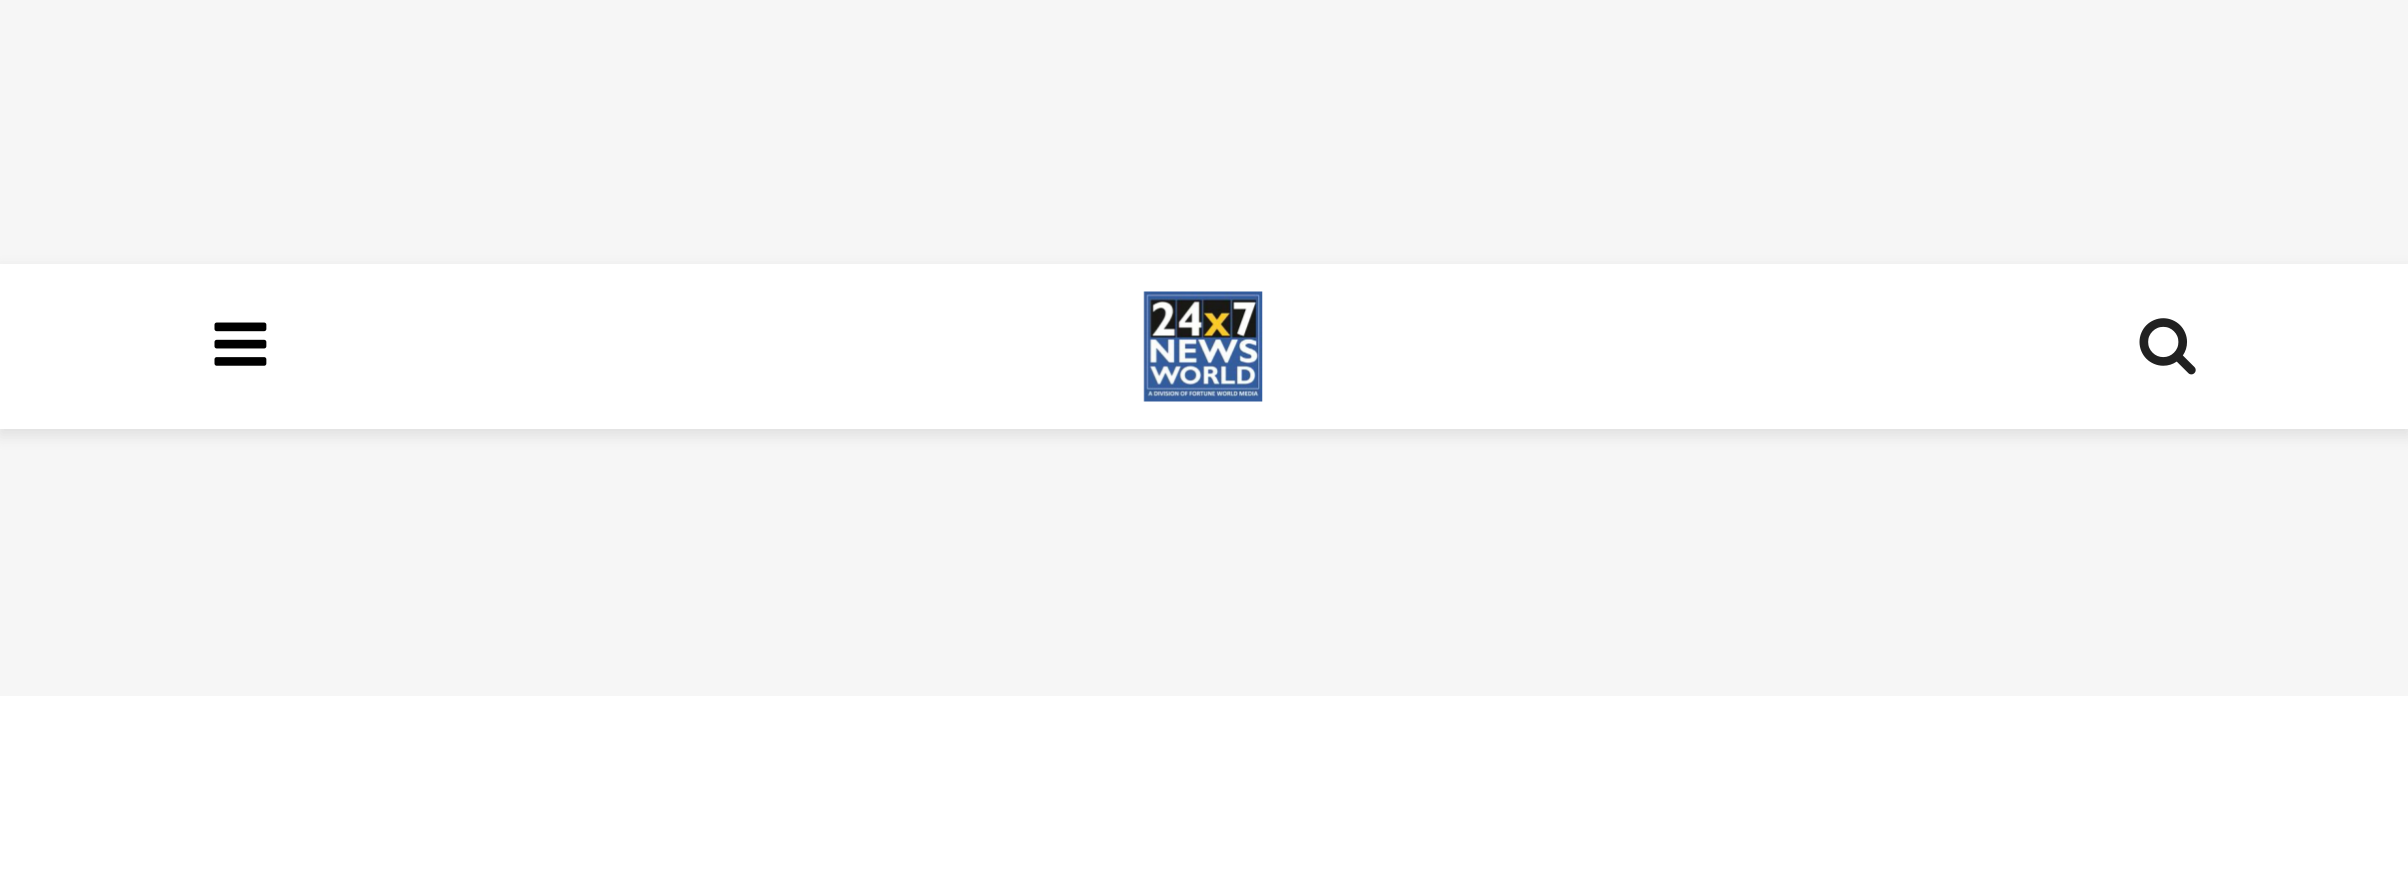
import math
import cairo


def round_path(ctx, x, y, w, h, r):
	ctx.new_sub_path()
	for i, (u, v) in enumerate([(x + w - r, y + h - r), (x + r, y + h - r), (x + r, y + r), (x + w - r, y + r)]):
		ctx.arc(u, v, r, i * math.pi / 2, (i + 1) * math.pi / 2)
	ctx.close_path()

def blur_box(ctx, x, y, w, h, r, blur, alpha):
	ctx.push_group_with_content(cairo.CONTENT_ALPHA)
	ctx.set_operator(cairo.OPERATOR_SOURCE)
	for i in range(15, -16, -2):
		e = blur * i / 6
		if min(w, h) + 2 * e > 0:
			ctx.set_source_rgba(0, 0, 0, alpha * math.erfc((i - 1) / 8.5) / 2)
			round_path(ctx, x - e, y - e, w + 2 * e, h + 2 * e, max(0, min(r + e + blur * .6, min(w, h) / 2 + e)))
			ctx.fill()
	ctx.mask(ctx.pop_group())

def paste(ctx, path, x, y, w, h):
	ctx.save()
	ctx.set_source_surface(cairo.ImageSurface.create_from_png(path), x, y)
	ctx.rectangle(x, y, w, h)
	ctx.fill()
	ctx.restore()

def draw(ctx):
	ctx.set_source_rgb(1, 1, 1)
	ctx.paint()
	ctx.set_source_rgb(0.961, 0.961, 0.961)
	ctx.rectangle(0, 0, 2408, 264)
	ctx.fill()
	ctx.rectangle(0, 429, 2408, 267)
	ctx.fill()
	ctx.save()
	ctx.set_fill_rule(cairo.FILL_RULE_EVEN_ODD)
	ctx.new_path()
	ctx.move_to(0, 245)
	ctx.line_to(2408, 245)
	ctx.line_to(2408, 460)
	ctx.line_to(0, 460)
	ctx.close_path()
	ctx.move_to(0, 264)
	ctx.line_to(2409, 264)
	ctx.line_to(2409, 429)
	ctx.line_to(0, 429)
	ctx.close_path()
	ctx.clip()
	ctx.set_source_rgb(0, 0, 0)
	blur_box(ctx, 0, 270, 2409, 165, 0, 8, 0.1)
	ctx.restore()
	paste(ctx, 'media/1.png', 214, 322, 53, 44)
	paste(ctx, 'media/2.png', 1143, 291, 120, 111)
	paste(ctx, 'media/3.png', 2139, 318, 57, 57)


surface = cairo.ImageSurface(cairo.FORMAT_RGB24, 2408, 878)
ctx = cairo.Context(surface)
options = cairo.FontOptions()
options.set_hint_metrics(cairo.HINT_METRICS_OFF)
options.set_hint_style(cairo.HINT_STYLE_NONE)
ctx.set_font_options(options)
ctx.set_miter_limit(4)
draw(ctx)
surface.write_to_png('image.png')
